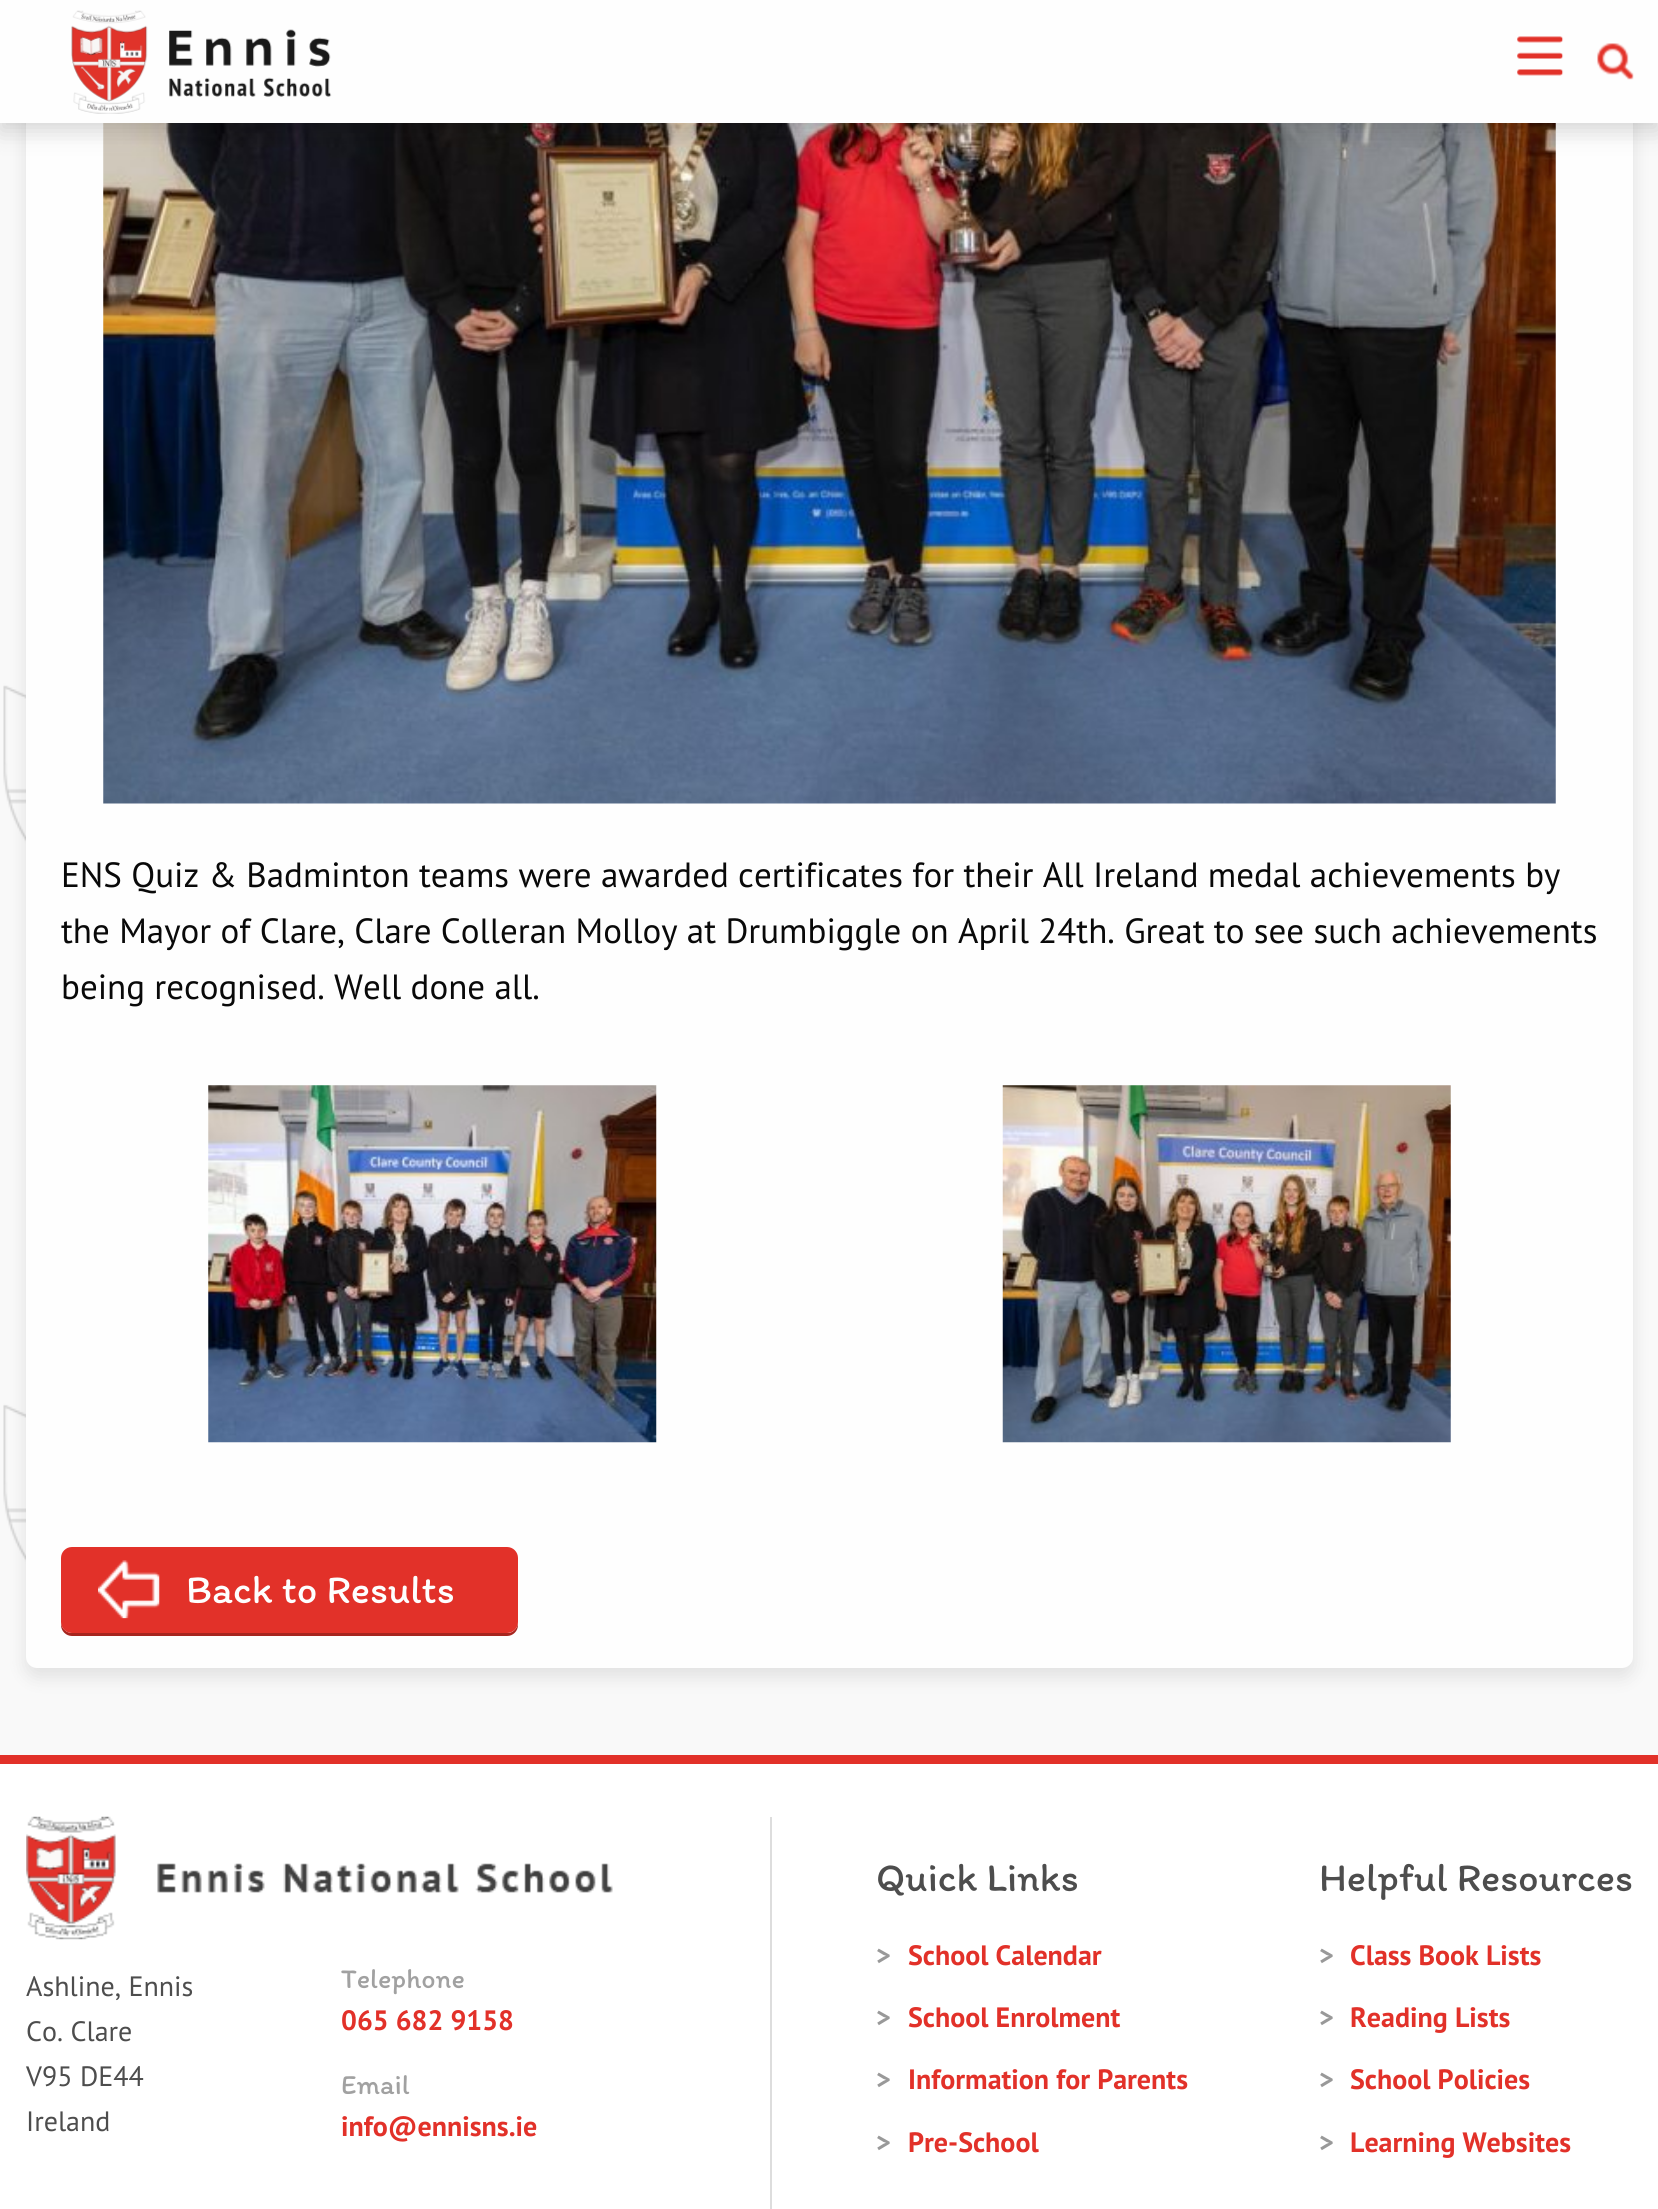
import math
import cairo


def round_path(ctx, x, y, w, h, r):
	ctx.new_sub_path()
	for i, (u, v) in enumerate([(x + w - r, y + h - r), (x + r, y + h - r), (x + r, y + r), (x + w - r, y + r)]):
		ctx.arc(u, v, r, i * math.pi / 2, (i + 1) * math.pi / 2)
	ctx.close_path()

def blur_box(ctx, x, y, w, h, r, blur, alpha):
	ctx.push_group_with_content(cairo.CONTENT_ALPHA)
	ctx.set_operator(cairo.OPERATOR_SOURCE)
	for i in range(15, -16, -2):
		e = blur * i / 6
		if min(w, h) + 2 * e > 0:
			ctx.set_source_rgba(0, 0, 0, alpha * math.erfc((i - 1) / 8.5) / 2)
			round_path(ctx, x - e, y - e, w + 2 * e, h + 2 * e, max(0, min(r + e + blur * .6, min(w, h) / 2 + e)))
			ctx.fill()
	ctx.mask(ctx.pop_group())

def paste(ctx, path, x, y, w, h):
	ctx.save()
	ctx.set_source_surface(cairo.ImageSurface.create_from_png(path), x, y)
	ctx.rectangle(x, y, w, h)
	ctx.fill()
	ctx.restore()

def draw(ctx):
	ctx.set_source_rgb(1, 1, 1)
	ctx.paint()
	paste(ctx, 'media/4.png', 0, 123, 1658, 1632)
	ctx.set_source_rgb(0.039, 0.039, 0.039)
	blur_box(ctx, 26, -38, 1607, 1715, 11, 9, 0.1)
	ctx.set_source_rgb(0.996, 0.996, 0.996)
	ctx.new_path()
	ctx.move_to(26, -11)
	ctx.line_to(1633, -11)
	ctx.line_to(1633, 1657)
	ctx.curve_to(1633, 1663, 1628, 1668, 1622, 1668)
	ctx.line_to(37, 1668)
	ctx.curve_to(31, 1668, 26, 1663, 26, 1657)
	ctx.close_path()
	ctx.fill()
	paste(ctx, 'media/5.png', 103, 123, 1453, 681)
	ctx.set_source_rgb(0.039, 0.039, 0.039)
	blur_box(ctx, 0, 9, 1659, 122, 0, 11.5, 0.17)
	ctx.set_source_rgb(0.996, 0.996, 0.996)
	ctx.rectangle(0, 0, 1658, 123)
	ctx.fill()
	paste(ctx, 'media/1.png', 71, 10, 261, 104)
	paste(ctx, 'media/2.png', 1517, 36, 47, 40)
	paste(ctx, 'media/3.png', 1597, 43, 37, 37)
	ctx.select_font_face('PT Sans')
	ctx.set_font_size(35)
	ctx.set_source_rgb(0.039, 0.039, 0.039)
	for x, y, s in [
		(61, 887, 'ENS Quiz & Badminton teams were awarded certificates for their All Ireland medal achievements by'),
		(61, 943, 'the Mayor of Clare, Clare Colleran Molloy at Drumbiggle on April 24th. Great to see such achievements'),
		(61, 999, 'being recognised. Well done all.'),
	]:
		ctx.move_to(x, y)
		ctx.show_text(s)
	paste(ctx, 'media/6.png', 208, 1085, 449, 358)
	paste(ctx, 'media/7.png', 1002, 1085, 449, 358)
	ctx.set_source_rgb(0.651, 0.145, 0.118)
	ctx.new_path()
	ctx.move_to(61, 1560)
	ctx.line_to(61, 1625)
	ctx.curve_to(61, 1631, 66, 1636, 72, 1636)
	ctx.line_to(507, 1636)
	ctx.curve_to(513, 1636, 518, 1631, 518, 1625)
	ctx.line_to(518, 1622)
	ctx.curve_to(518, 1628, 513, 1633, 508, 1633)
	ctx.line_to(72, 1633)
	ctx.curve_to(66, 1633, 61, 1628, 61, 1622)
	ctx.close_path()
	ctx.fill()
	ctx.set_source_rgb(0.886, 0.192, 0.161)
	round_path(ctx, 61, 1547, 457, 86, 11)
	ctx.fill()
	paste(ctx, 'media/8.png', 98, 1560, 62, 59)
	ctx.select_font_face('Itim')
	ctx.set_font_size(40.25)
	ctx.set_source_rgb(0.996, 0.996, 0.996)
	ctx.move_to(186, 1603)
	ctx.show_text('Back to Results')
	ctx.set_source_rgb(0.886, 0.192, 0.161)
	ctx.rectangle(0, 1755, 1658, 9)
	ctx.fill()
	ctx.set_source_rgb(0.867, 0.867, 0.867)
	ctx.rectangle(770, 1817, 2, 392)
	ctx.fill()
	paste(ctx, 'media/9.png', 26, 1816, 587, 124)
	ctx.select_font_face('PT Sans')
	ctx.set_font_size(28)
	ctx.set_source_rgb(0.302, 0.302, 0.302)
	for x, y, s in [
		(26, 1996, 'Ashline, Ennis'),
		(26, 2041, 'Co. Clare'),
		(26, 2086, 'V95 DE44'),
		(26, 2131, 'Ireland'),
	]:
		ctx.move_to(x, y)
		ctx.show_text(s)
	ctx.select_font_face('Itim')
	ctx.set_source_rgb(0.631, 0.631, 0.631)
	ctx.move_to(341, 1988)
	ctx.show_text('Telephone')
	ctx.select_font_face('PT Sans', cairo.FONT_SLANT_NORMAL, cairo.FONT_WEIGHT_BOLD)
	ctx.set_source_rgb(0.886, 0.192, 0.161)
	ctx.move_to(341, 2030)
	ctx.show_text('065 682 9158')
	ctx.select_font_face('Itim')
	ctx.set_source_rgb(0.631, 0.631, 0.631)
	ctx.move_to(341, 2094)
	ctx.show_text('Email')
	ctx.select_font_face('PT Sans', cairo.FONT_SLANT_NORMAL, cairo.FONT_WEIGHT_BOLD)
	ctx.set_source_rgb(0.886, 0.192, 0.161)
	ctx.move_to(341, 2136)
	ctx.show_text('info@ennisns.ie')
	ctx.select_font_face('Itim')
	ctx.set_font_size(40.25)
	ctx.set_source_rgb(0.302, 0.302, 0.302)
	ctx.move_to(876, 1891)
	ctx.show_text('Quick Links')
	ctx.select_font_face('PT Sans', cairo.FONT_SLANT_NORMAL, cairo.FONT_WEIGHT_BOLD)
	ctx.set_font_size(28)
	ctx.set_source_rgb(0.6, 0.6, 0.6)
	ctx.move_to(876, 1965)
	ctx.show_text('>')
	ctx.set_source_rgb(0.886, 0.192, 0.161)
	ctx.move_to(908, 1965)
	ctx.show_text('School Calendar')
	ctx.set_source_rgb(0.6, 0.6, 0.6)
	ctx.move_to(876, 2027)
	ctx.show_text('>')
	ctx.set_source_rgb(0.886, 0.192, 0.161)
	ctx.move_to(908, 2027)
	ctx.show_text('School Enrolment')
	ctx.set_source_rgb(0.6, 0.6, 0.6)
	ctx.move_to(876, 2089)
	ctx.show_text('>')
	ctx.set_source_rgb(0.886, 0.192, 0.161)
	ctx.move_to(908, 2089)
	ctx.show_text('Information for Parents')
	ctx.set_source_rgb(0.6, 0.6, 0.6)
	ctx.move_to(876, 2152)
	ctx.show_text('>')
	ctx.set_source_rgb(0.886, 0.192, 0.161)
	ctx.move_to(908, 2152)
	ctx.show_text('Pre-School')
	ctx.select_font_face('Itim')
	ctx.set_font_size(40.25)
	ctx.set_source_rgb(0.302, 0.302, 0.302)
	ctx.move_to(1319, 1891)
	ctx.show_text('Helpful Resources')
	ctx.select_font_face('PT Sans', cairo.FONT_SLANT_NORMAL, cairo.FONT_WEIGHT_BOLD)
	ctx.set_font_size(28)
	ctx.set_source_rgb(0.6, 0.6, 0.6)
	ctx.move_to(1319, 1965)
	ctx.show_text('>')
	ctx.set_source_rgb(0.886, 0.192, 0.161)
	ctx.move_to(1350, 1965)
	ctx.show_text('Class Book Lists')
	ctx.set_source_rgb(0.6, 0.6, 0.6)
	ctx.move_to(1319, 2027)
	ctx.show_text('>')
	ctx.set_source_rgb(0.886, 0.192, 0.161)
	ctx.move_to(1350, 2027)
	ctx.show_text('Reading Lists')
	ctx.set_source_rgb(0.6, 0.6, 0.6)
	ctx.move_to(1319, 2089)
	ctx.show_text('>')
	ctx.set_source_rgb(0.886, 0.192, 0.161)
	ctx.move_to(1350, 2089)
	ctx.show_text('School Policies')
	ctx.set_source_rgb(0.6, 0.6, 0.6)
	ctx.move_to(1319, 2152)
	ctx.show_text('>')
	ctx.set_source_rgb(0.886, 0.192, 0.161)
	ctx.move_to(1350, 2152)
	ctx.show_text('Learning Websites')


surface = cairo.ImageSurface(cairo.FORMAT_RGB24, 1658, 2209)
ctx = cairo.Context(surface)
options = cairo.FontOptions()
options.set_hint_metrics(cairo.HINT_METRICS_OFF)
options.set_hint_style(cairo.HINT_STYLE_NONE)
ctx.set_font_options(options)
ctx.set_miter_limit(4)
draw(ctx)
surface.write_to_png('image.png')
